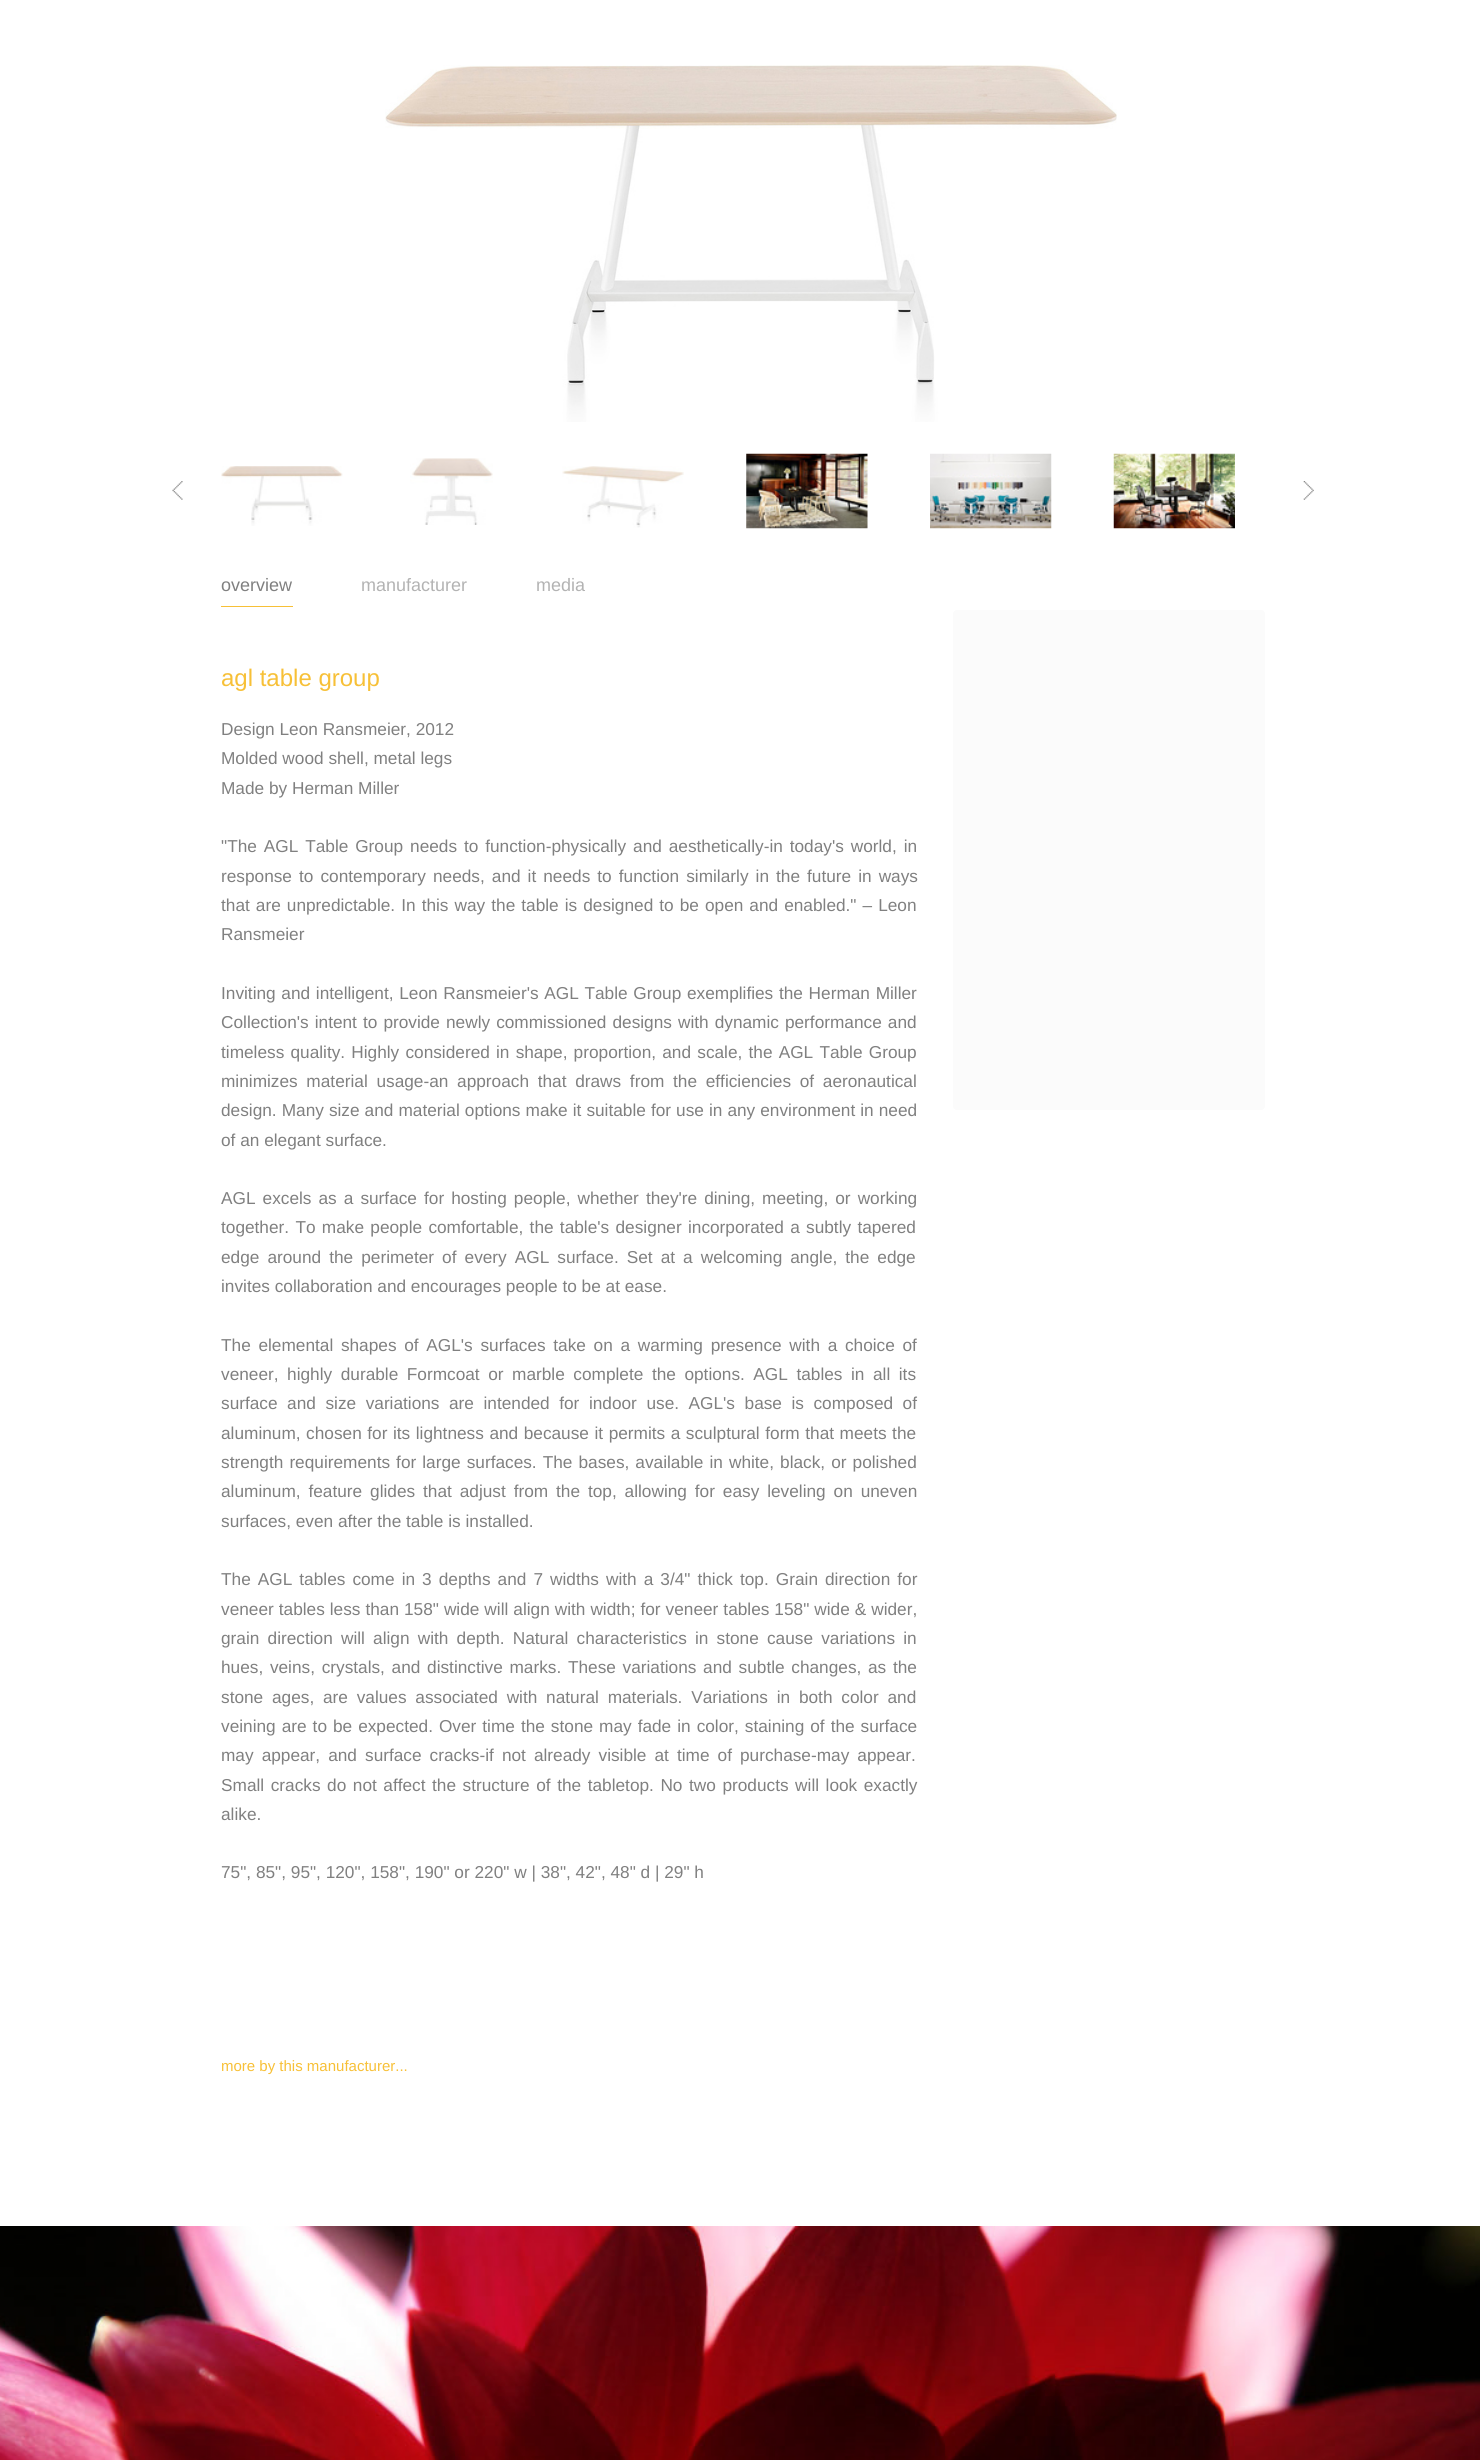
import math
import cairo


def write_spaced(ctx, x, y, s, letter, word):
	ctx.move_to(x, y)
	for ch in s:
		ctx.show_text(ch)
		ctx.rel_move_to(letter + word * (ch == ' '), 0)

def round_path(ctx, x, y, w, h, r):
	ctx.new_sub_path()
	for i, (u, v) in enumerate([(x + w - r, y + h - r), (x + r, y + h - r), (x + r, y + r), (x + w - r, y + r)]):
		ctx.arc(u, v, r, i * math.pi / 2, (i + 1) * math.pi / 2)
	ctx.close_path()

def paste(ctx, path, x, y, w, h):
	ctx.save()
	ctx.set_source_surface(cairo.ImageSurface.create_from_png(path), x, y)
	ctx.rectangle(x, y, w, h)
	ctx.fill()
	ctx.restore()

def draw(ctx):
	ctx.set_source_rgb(1, 1, 1)
	ctx.paint()
	paste(ctx, 'media/1.png', 385, 65, 732, 357)
	paste(ctx, 'media/2.png', 172, 481, 11, 19)
	paste(ctx, 'media/3.png', 221, 466, 122, 60)
	paste(ctx, 'media/4.png', 410, 458, 83, 67)
	paste(ctx, 'media/5.png', 562, 466, 122, 62)
	paste(ctx, 'media/6.png', 746, 453, 122, 76)
	paste(ctx, 'media/7.png', 930, 453, 122, 76)
	paste(ctx, 'media/8.png', 1113, 453, 122, 76)
	paste(ctx, 'media/9.png', 1303, 481, 11, 19)
	ctx.set_source_rgb(0.965, 0.753, 0.216)
	ctx.rectangle(221, 606, 72, 1)
	ctx.fill()
	ctx.select_font_face('Liberation Sans')
	ctx.set_font_size(18)
	ctx.set_source_rgb(0.502, 0.502, 0.502)
	ctx.move_to(221, 591)
	ctx.show_text('overview')
	ctx.set_source_rgb(0.702, 0.702, 0.702)
	ctx.move_to(361, 591)
	ctx.show_text('manufacturer')
	ctx.move_to(536, 591)
	ctx.show_text('media')
	ctx.set_font_size(24)
	ctx.set_source_rgb(0.965, 0.753, 0.216)
	ctx.move_to(221, 686)
	ctx.show_text('agl table group')
	ctx.set_font_size(17.25)
	ctx.set_source_rgb(0.502, 0.502, 0.502)
	for x, y, s in [
		(221, 735, 'Design Leon Ransmeier, 2012'),
		(221, 764, 'Molded wood shell, metal legs'),
		(221, 794, 'Made by Herman Miller'),
	]:
		ctx.move_to(x, y)
		ctx.show_text(s)
	write_spaced(ctx, 221, 852, '"The AGL Table Group needs to function-physically and aesthetically-in today\'s world, in', 0, 2.1)
	write_spaced(ctx, 221, 882, 'response to contemporary needs, and it needs to function similarly in the future in ways', 0, 2.25)
	write_spaced(ctx, 221, 911, 'that are unpredictable. In this way the table is designed to be open and enabled." – Leon', 0, 1.25)
	ctx.move_to(221, 940)
	ctx.show_text('Ransmeier')
	write_spaced(ctx, 221, 999, 'Inviting and intelligent, Leon Ransmeier\'s AGL Table Group exemplifies the Herman Miller', 0, 0.9)
	write_spaced(ctx, 221, 1028, 'Collection\'s intent to provide newly commissioned designs with dynamic performance and', 0, 1.25)
	write_spaced(ctx, 221, 1058, 'timeless quality. Highly considered in shape, proportion, and scale, the AGL Table Group', 0, 1.4)
	write_spaced(ctx, 221, 1087, 'minimizes material usage-an approach that draws from the efficiencies of aeronautical', 0, 3.9)
	write_spaced(ctx, 221, 1116, 'design. Many size and material options make it suitable for use in any environment in need', 0, 0.25)
	ctx.move_to(221, 1146)
	ctx.show_text('of an elegant surface.')
	write_spaced(ctx, 221, 1204, 'AGL excels as a surface for hosting people, whether they\'re dining, meeting, or working', 0, 2.25)
	write_spaced(ctx, 221, 1233, 'together. To make people comfortable, the table\'s designer incorporated a subtly tapered', 0, 1.5)
	write_spaced(ctx, 221, 1263, 'edge around the perimeter of every AGL surface. Set at a welcoming angle, the edge', 0, 3.25)
	ctx.move_to(221, 1292)
	ctx.show_text('invites collaboration and encourages people to be at ease.')
	write_spaced(ctx, 221, 1351, 'The elemental shapes of AGL\'s surfaces take on a warming presence with a choice of', 0, 2.9)
	write_spaced(ctx, 221, 1380, 'veneer, highly durable Formcoat or marble complete the options. AGL tables in all its', 0, 3.75)
	write_spaced(ctx, 221, 1409, 'surface and size variations are intended for indoor use. AGL\'s base is composed of', 0, 4.75)
	write_spaced(ctx, 221, 1439, 'aluminum, chosen for its lightness and because it permits a sculptural form that meets the', 0, 0.75)
	write_spaced(ctx, 221, 1468, 'strength requirements for large surfaces. The bases, available in white, black, or polished', 0, 1.25)
	write_spaced(ctx, 221, 1497, 'aluminum, feature glides that adjust from the top, allowing for easy leveling on uneven', 0, 3.1)
	ctx.move_to(221, 1527)
	ctx.show_text('surfaces, even after the table is installed.')
	write_spaced(ctx, 221, 1585, 'The AGL tables come in 3 depths and 7 widths with a 3/4" thick top. Grain direction for', 0, 2.25)
	write_spaced(ctx, 221, 1615, 'veneer tables less than 158" wide will align with width; for veneer tables 158" wide & wider,', 0, 0.2)
	write_spaced(ctx, 221, 1644, 'grain direction will align with depth. Natural characteristics in stone cause variations in', 0, 3.4)
	write_spaced(ctx, 221, 1673, 'hues, veins, crystals, and distinctive marks. These variations and subtle changes, as the', 0, 1.9)
	write_spaced(ctx, 221, 1703, 'stone ages, are values associated with natural materials. Variations in both color and', 0, 4)
	write_spaced(ctx, 221, 1732, 'veining are to be expected. Over time the stone may fade in color, staining of the surface', 0, 1.2)
	write_spaced(ctx, 221, 1761, 'may appear, and surface cracks-if not already visible at time of purchase-may appear.', 0, 3.25)
	write_spaced(ctx, 221, 1791, 'Small cracks do not affect the structure of the tabletop. No two products will look exactly', 0, 1.75)
	ctx.move_to(221, 1820)
	ctx.show_text('alike.')
	ctx.move_to(221, 1878)
	ctx.show_text('75", 85", 95", 120", 158", 190" or 220" w | 38", 42", 48" d | 29" h')
	ctx.set_source_rgb(0.984, 0.984, 0.984)
	round_path(ctx, 953, 610, 312, 500, 4)
	ctx.fill()
	ctx.set_font_size(15)
	ctx.set_source_rgb(0.965, 0.753, 0.216)
	ctx.move_to(221, 2071)
	ctx.show_text('more by this manufacturer...')
	paste(ctx, 'media/10.png', 0, 2226, 1480, 234)


surface = cairo.ImageSurface(cairo.FORMAT_RGB24, 1480, 2460)
ctx = cairo.Context(surface)
options = cairo.FontOptions()
options.set_hint_metrics(cairo.HINT_METRICS_OFF)
options.set_hint_style(cairo.HINT_STYLE_NONE)
ctx.set_font_options(options)
ctx.set_miter_limit(4)
draw(ctx)
surface.write_to_png('image.png')
